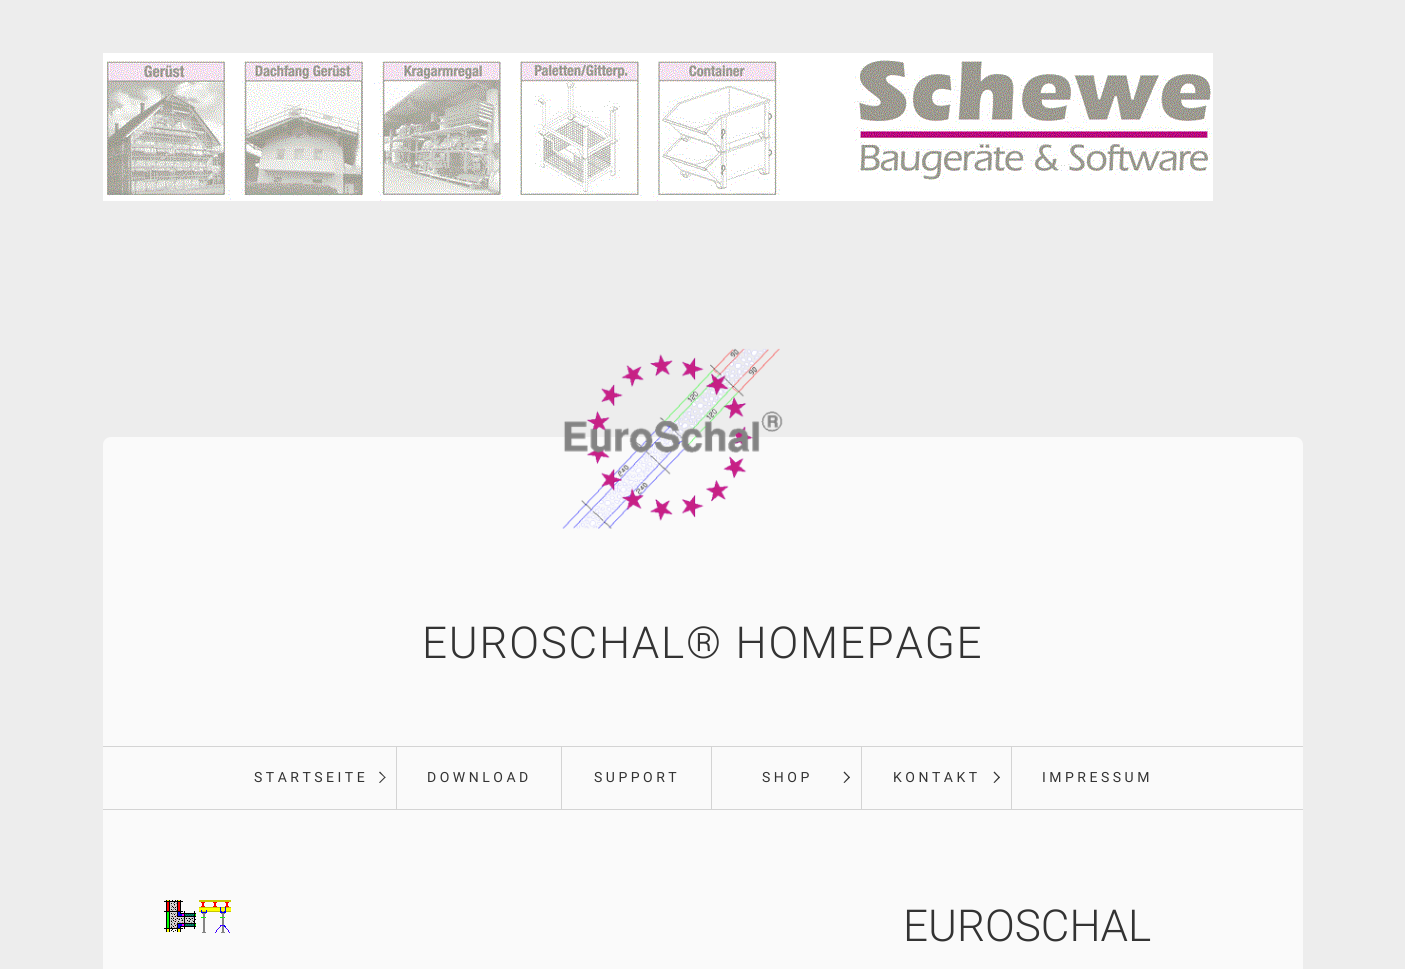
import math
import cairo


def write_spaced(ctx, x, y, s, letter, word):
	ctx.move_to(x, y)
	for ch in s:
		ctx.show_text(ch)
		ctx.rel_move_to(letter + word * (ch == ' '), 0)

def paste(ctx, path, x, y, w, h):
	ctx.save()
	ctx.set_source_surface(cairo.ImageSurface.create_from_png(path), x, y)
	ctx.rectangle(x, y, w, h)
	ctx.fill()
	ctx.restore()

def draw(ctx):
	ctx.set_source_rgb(0.929, 0.929, 0.929)
	ctx.paint()
	paste(ctx, 'media/1.png', 103, 53, 1110, 148)
	ctx.set_source_rgb(0.98, 0.98, 0.98)
	ctx.new_path()
	ctx.move_to(111, 437)
	ctx.line_to(1295, 437)
	ctx.curve_to(1299.5, 437, 1303, 440.5, 1303, 445)
	ctx.line_to(1303, 809)
	ctx.line_to(103, 809)
	ctx.line_to(103, 445)
	ctx.curve_to(103, 440.5, 106.5, 437, 111, 437)
	ctx.close_path()
	ctx.fill()
	paste(ctx, 'media/2.png', 562, 348, 221, 181)
	ctx.select_font_face('Roboto Light')
	ctx.set_font_size(44)
	ctx.set_source_rgb(0.2, 0.2, 0.2)
	write_spaced(ctx, 422, 658, 'EUROSCHAL® HOMEPAGE', 1.75, 0)
	ctx.set_source_rgb(0.831, 0.831, 0.831)
	ctx.rectangle(103, 746, 1200, 1)
	ctx.fill()
	ctx.select_font_face('Roboto')
	ctx.set_font_size(14)
	ctx.set_source_rgb(0.2, 0.2, 0.2)
	write_spaced(ctx, 254, 782, 'STARTSEITE', 3.5, 0)
	ctx.new_path()
	ctx.move_to(380, 771.5)
	ctx.line_to(385.5, 777.5)
	ctx.line_to(385, 778)
	ctx.line_to(379, 772.5)
	ctx.close_path()
	ctx.fill()
	ctx.new_path()
	ctx.move_to(385, 776.5)
	ctx.line_to(385.5, 777.5)
	ctx.line_to(380, 783)
	ctx.line_to(379, 782.5)
	ctx.close_path()
	ctx.fill()
	ctx.set_source_rgb(0.831, 0.831, 0.831)
	ctx.rectangle(396, 747, 1, 62)
	ctx.fill()
	ctx.set_source_rgb(0.2, 0.2, 0.2)
	write_spaced(ctx, 427, 782, 'DOWNLOAD', 3.5, 0)
	ctx.set_source_rgb(0.831, 0.831, 0.831)
	ctx.rectangle(561, 747, 1, 62)
	ctx.fill()
	ctx.set_source_rgb(0.2, 0.2, 0.2)
	write_spaced(ctx, 594, 782, 'SUPPORT', 3.5, 0)
	ctx.set_source_rgb(0.831, 0.831, 0.831)
	ctx.rectangle(711, 747, 1, 62)
	ctx.fill()
	ctx.set_source_rgb(0.2, 0.2, 0.2)
	write_spaced(ctx, 762, 782, 'SHOP', 3.5, 0)
	ctx.new_path()
	ctx.move_to(844.5, 771.5)
	ctx.line_to(850, 777.5)
	ctx.line_to(849, 778)
	ctx.line_to(843.5, 772.5)
	ctx.close_path()
	ctx.fill()
	ctx.new_path()
	ctx.move_to(849, 776.5)
	ctx.line_to(850, 777.5)
	ctx.line_to(844.5, 783)
	ctx.line_to(843.5, 782.5)
	ctx.close_path()
	ctx.fill()
	ctx.set_source_rgb(0.831, 0.831, 0.831)
	ctx.rectangle(861, 747, 1, 62)
	ctx.fill()
	ctx.set_source_rgb(0.2, 0.2, 0.2)
	write_spaced(ctx, 893, 782, 'KONTAKT', 3.5, 0)
	ctx.new_path()
	ctx.move_to(994.5, 771.5)
	ctx.line_to(1000, 777.5)
	ctx.line_to(999, 778)
	ctx.line_to(993.5, 772.5)
	ctx.close_path()
	ctx.fill()
	ctx.new_path()
	ctx.move_to(999, 776.5)
	ctx.line_to(1000, 777.5)
	ctx.line_to(994.5, 783)
	ctx.line_to(993.5, 782.5)
	ctx.close_path()
	ctx.fill()
	ctx.set_source_rgb(0.831, 0.831, 0.831)
	ctx.rectangle(1011, 747, 1, 62)
	ctx.fill()
	ctx.set_source_rgb(0.2, 0.2, 0.2)
	write_spaced(ctx, 1042, 782, 'IMPRESSUM', 3.5, 0)
	ctx.set_source_rgb(0.98, 0.98, 0.98)
	ctx.rectangle(103, 810, 1200, 159)
	ctx.fill()
	ctx.set_source_rgb(0.831, 0.831, 0.831)
	ctx.rectangle(103, 809, 1200, 1)
	ctx.fill()
	paste(ctx, 'media/3.png', 164, 900, 67, 33)
	ctx.select_font_face('Roboto Light')
	ctx.set_font_size(44)
	ctx.set_source_rgb(0.2, 0.2, 0.2)
	ctx.move_to(903, 941)
	ctx.show_text('EUROSCHAL')


surface = cairo.ImageSurface(cairo.FORMAT_RGB24, 1405, 969)
ctx = cairo.Context(surface)
options = cairo.FontOptions()
options.set_hint_metrics(cairo.HINT_METRICS_OFF)
options.set_hint_style(cairo.HINT_STYLE_NONE)
ctx.set_font_options(options)
ctx.set_miter_limit(4)
draw(ctx)
surface.write_to_png('image.png')
